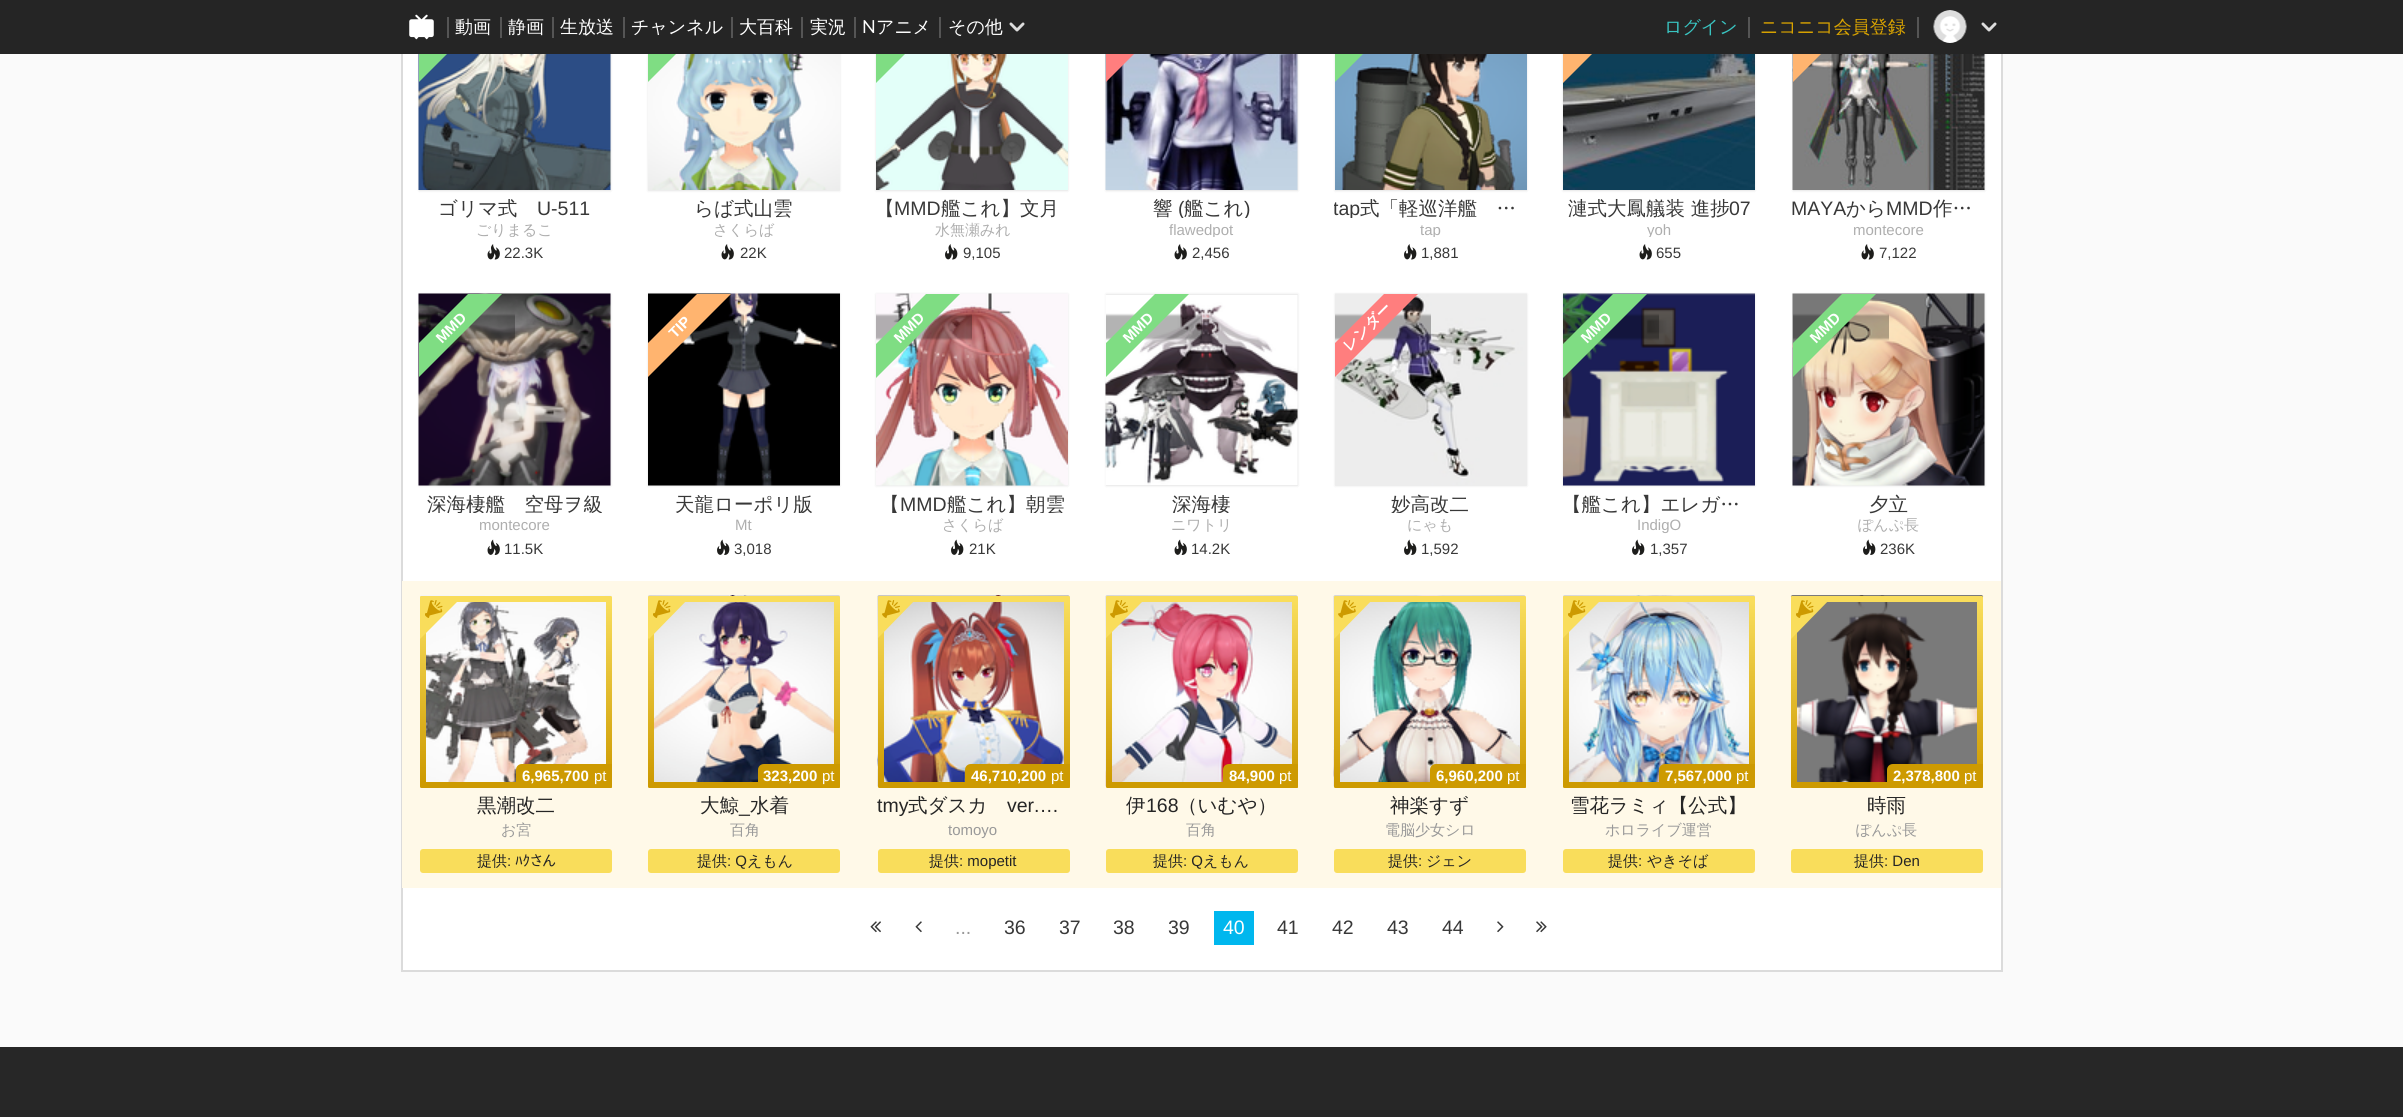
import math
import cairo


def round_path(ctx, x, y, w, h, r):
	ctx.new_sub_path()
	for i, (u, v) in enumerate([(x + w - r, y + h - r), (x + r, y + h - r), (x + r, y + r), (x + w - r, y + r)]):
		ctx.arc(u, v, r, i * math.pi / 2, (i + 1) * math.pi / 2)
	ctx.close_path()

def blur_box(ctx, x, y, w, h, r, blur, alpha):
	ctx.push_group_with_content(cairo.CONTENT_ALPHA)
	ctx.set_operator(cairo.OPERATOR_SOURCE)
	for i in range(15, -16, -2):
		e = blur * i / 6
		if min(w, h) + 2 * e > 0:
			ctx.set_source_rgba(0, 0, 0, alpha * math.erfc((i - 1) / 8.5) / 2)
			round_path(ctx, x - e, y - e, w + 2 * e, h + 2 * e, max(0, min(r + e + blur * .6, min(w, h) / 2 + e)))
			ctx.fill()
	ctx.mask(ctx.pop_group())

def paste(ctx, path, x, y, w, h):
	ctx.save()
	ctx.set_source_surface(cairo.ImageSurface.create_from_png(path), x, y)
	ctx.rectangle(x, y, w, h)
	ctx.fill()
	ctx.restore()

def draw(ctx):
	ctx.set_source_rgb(0.98, 0.98, 0.98)
	ctx.paint()
	ctx.set_source_rgb(1, 1, 1)
	ctx.rectangle(403, 54, 1598, 916)
	ctx.fill()
	ctx.rectangle(402, -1, 1600, 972)
	ctx.set_source_rgb(0.859, 0.859, 0.859)
	ctx.stroke()
	ctx.set_source_rgb(0, 0, 0)
	blur_box(ctx, 419, -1, 192, 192, 0, 1, 0.1)
	paste(ctx, 'media/4.png', 418, 54, 193, 136)
	ctx.save()
	ctx.rectangle(419, 0, 96, 95)
	ctx.clip()
	ctx.set_source_rgb(0.498, 0.867, 0.514)
	ctx.new_path()
	ctx.move_to(375, 92)
	ctx.line_to(511, -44)
	ctx.line_to(528, -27)
	ctx.line_to(392, 109)
	ctx.close_path()
	ctx.fill()
	ctx.restore()
	blur_box(ctx, 648, -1, 192, 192, 0, 1, 0.1)
	paste(ctx, 'media/6.png', 648, 54, 192, 136)
	ctx.save()
	ctx.rectangle(648, 0, 96, 95)
	ctx.clip()
	ctx.set_source_rgb(0.498, 0.867, 0.514)
	ctx.new_path()
	ctx.move_to(604, 92)
	ctx.line_to(740, -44)
	ctx.line_to(757, -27)
	ctx.line_to(621, 109)
	ctx.close_path()
	ctx.fill()
	ctx.restore()
	blur_box(ctx, 876, -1, 192, 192, 0, 1, 0.1)
	paste(ctx, 'media/7.png', 876, 54, 192, 136)
	ctx.save()
	ctx.rectangle(876, 0, 96, 95)
	ctx.clip()
	ctx.set_source_rgb(0.498, 0.867, 0.514)
	ctx.new_path()
	ctx.move_to(833, 92)
	ctx.line_to(969, -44)
	ctx.line_to(986, -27)
	ctx.line_to(850, 109)
	ctx.close_path()
	ctx.fill()
	ctx.restore()
	blur_box(ctx, 1106, -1, 192, 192, 0, 1, 0.1)
	paste(ctx, 'media/9.png', 1105, 54, 193, 136)
	ctx.save()
	ctx.rectangle(1106, 0, 96, 95)
	ctx.clip()
	ctx.set_source_rgb(1, 0.494, 0.494)
	ctx.new_path()
	ctx.move_to(1062, 92)
	ctx.line_to(1198, -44)
	ctx.line_to(1215, -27)
	ctx.line_to(1079, 109)
	ctx.close_path()
	ctx.fill()
	ctx.restore()
	blur_box(ctx, 1335, -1, 192, 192, 0, 1, 0.1)
	paste(ctx, 'media/10.png', 1335, 54, 192, 136)
	ctx.save()
	ctx.rectangle(1335, 0, 96, 95)
	ctx.clip()
	ctx.set_source_rgb(0.498, 0.867, 0.514)
	ctx.new_path()
	ctx.move_to(1291, 92)
	ctx.line_to(1427, -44)
	ctx.line_to(1444, -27)
	ctx.line_to(1308, 109)
	ctx.close_path()
	ctx.fill()
	ctx.restore()
	blur_box(ctx, 1563, -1, 192, 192, 0, 1, 0.1)
	paste(ctx, 'media/11.png', 1563, 54, 192, 136)
	ctx.save()
	ctx.rectangle(1563, 0, 96, 95)
	ctx.clip()
	ctx.set_source_rgb(1, 0.706, 0.435)
	ctx.new_path()
	ctx.move_to(1520, 92)
	ctx.line_to(1656, -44)
	ctx.line_to(1673, -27)
	ctx.line_to(1537, 109)
	ctx.close_path()
	ctx.fill()
	ctx.restore()
	blur_box(ctx, 1793, -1, 192, 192, 0, 1, 0.1)
	paste(ctx, 'media/12.png', 1792, 54, 193, 136)
	ctx.save()
	ctx.rectangle(1793, 0, 96, 95)
	ctx.clip()
	ctx.set_source_rgb(1, 0.706, 0.435)
	ctx.new_path()
	ctx.move_to(1749, 92)
	ctx.line_to(1885, -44)
	ctx.line_to(1902, -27)
	ctx.line_to(1766, 109)
	ctx.close_path()
	ctx.fill()
	ctx.restore()
	ctx.set_source_rgb(0.145, 0.145, 0.145)
	ctx.rectangle(0, 0, 2403, 54)
	ctx.fill()
	paste(ctx, 'media/1.png', 409, 14, 25, 26)
	ctx.set_source_rgb(0.333, 0.333, 0.333)
	ctx.rectangle(447, 17, 2, 21)
	ctx.fill()
	ctx.select_font_face('WenQuanYi Zen Hei Medium')
	ctx.set_font_size(18)
	ctx.set_source_rgb(1, 1, 1)
	ctx.move_to(455, 33)
	ctx.show_text('動画')
	ctx.set_source_rgb(0.333, 0.333, 0.333)
	ctx.rectangle(500, 17, 2, 21)
	ctx.fill()
	ctx.set_source_rgb(1, 1, 1)
	ctx.move_to(508, 33)
	ctx.show_text('静画')
	ctx.set_source_rgb(0.333, 0.333, 0.333)
	ctx.rectangle(552, 17, 2, 21)
	ctx.fill()
	ctx.set_source_rgb(1, 1, 1)
	ctx.move_to(560, 33)
	ctx.show_text('生放送')
	ctx.set_source_rgb(0.333, 0.333, 0.333)
	ctx.rectangle(623, 17, 2, 21)
	ctx.fill()
	ctx.set_source_rgb(1, 1, 1)
	ctx.move_to(631, 33)
	ctx.show_text('チャンネル')
	ctx.set_source_rgb(0.333, 0.333, 0.333)
	ctx.rectangle(731, 17, 2, 21)
	ctx.fill()
	ctx.set_source_rgb(1, 1, 1)
	ctx.move_to(739, 33)
	ctx.show_text('大百科')
	ctx.set_source_rgb(0.333, 0.333, 0.333)
	ctx.rectangle(801, 17, 2, 21)
	ctx.fill()
	ctx.set_source_rgb(1, 1, 1)
	ctx.move_to(810, 33)
	ctx.show_text('実況')
	ctx.set_source_rgb(0.333, 0.333, 0.333)
	ctx.rectangle(854, 17, 2, 21)
	ctx.fill()
	ctx.select_font_face('Lato')
	ctx.set_source_rgb(1, 1, 1)
	ctx.move_to(862, 33)
	ctx.show_text('N')
	ctx.select_font_face('WenQuanYi Zen Hei Medium')
	ctx.move_to(876, 33)
	ctx.show_text('アニメ')
	ctx.set_source_rgb(0.333, 0.333, 0.333)
	ctx.rectangle(939, 17, 2, 21)
	ctx.fill()
	ctx.set_source_rgb(1, 1, 1)
	ctx.move_to(948, 33)
	ctx.show_text('その他')
	paste(ctx, 'media/2.png', 1009, 22, 16, 10)
	ctx.set_source_rgb(0.224, 0.769, 0.757)
	ctx.move_to(1664, 33)
	ctx.show_text('ログイン')
	ctx.set_source_rgb(0.333, 0.333, 0.333)
	ctx.rectangle(1748, 17, 2, 21)
	ctx.fill()
	ctx.set_source_rgb(0.851, 0.639, 0)
	ctx.move_to(1760, 33)
	ctx.show_text('ニコニコ会員登録')
	ctx.set_source_rgb(0.333, 0.333, 0.333)
	ctx.rectangle(1917, 17, 2, 21)
	ctx.fill()
	paste(ctx, 'media/3.png', 1933, 10, 34, 33)
	paste(ctx, 'media/2.png', 1981, 22, 16, 10)
	ctx.set_font_size(19.5)
	ctx.set_source_rgb(0.22, 0.22, 0.22)
	ctx.move_to(438, 215)
	ctx.show_text('ゴリマ式')
	ctx.select_font_face('Liberation Sans')
	ctx.move_to(537, 215)
	ctx.show_text('U-511')
	ctx.save()
	ctx.rectangle(417, 0, 195, 237)
	ctx.clip()
	ctx.select_font_face('WenQuanYi Zen Hei Medium')
	ctx.set_font_size(15)
	ctx.set_source_rgb(0.682, 0.682, 0.682)
	ctx.move_to(476, 235)
	ctx.show_text('ごりまるこ')
	ctx.restore()
	paste(ctx, 'media/5.png', 487, 244, 13, 16)
	ctx.set_font_size(15)
	ctx.move_to(504, 258)
	ctx.show_text('22.3K')
	ctx.select_font_face('WenQuanYi Zen Hei Medium')
	ctx.set_font_size(19.5)
	ctx.move_to(694, 215)
	ctx.show_text('らば式山雲')
	ctx.save()
	ctx.rectangle(647, 0, 195, 237)
	ctx.clip()
	ctx.set_font_size(15)
	ctx.set_source_rgb(0.682, 0.682, 0.682)
	ctx.move_to(713, 235)
	ctx.show_text('さくらば')
	ctx.restore()
	paste(ctx, 'media/5.png', 721, 244, 13, 16)
	ctx.select_font_face('Liberation Sans')
	ctx.set_font_size(15)
	ctx.move_to(740, 258)
	ctx.show_text('22K')
	ctx.select_font_face('WenQuanYi Zen Hei Medium')
	ctx.set_font_size(19.5)
	ctx.move_to(875, 215)
	ctx.show_text('【')
	ctx.select_font_face('Liberation Sans')
	ctx.move_to(894, 215)
	ctx.show_text('MMD')
	ctx.select_font_face('WenQuanYi Zen Hei Medium')
	ctx.move_to(941, 215)
	ctx.show_text('艦これ】文月')
	ctx.save()
	ctx.rectangle(875, 0, 195, 237)
	ctx.clip()
	ctx.set_font_size(15)
	ctx.set_source_rgb(0.682, 0.682, 0.682)
	ctx.move_to(935, 235)
	ctx.show_text('水無瀬みれ')
	ctx.restore()
	paste(ctx, 'media/8.png', 945, 244, 13, 16)
	ctx.select_font_face('Liberation Sans')
	ctx.set_font_size(15)
	ctx.move_to(963, 258)
	ctx.show_text('9,105')
	ctx.select_font_face('WenQuanYi Zen Hei Medium')
	ctx.set_font_size(19.5)
	ctx.move_to(1153, 215)
	ctx.show_text('響')
	ctx.save()
	ctx.rectangle(1104, 198, 195, 20)
	ctx.clip()
	ctx.select_font_face('Liberation Sans')
	ctx.move_to(1178, 215)
	ctx.show_text('(')
	ctx.restore()
	ctx.move_to(1184, 215)
	ctx.show_text('艦これ')
	ctx.save()
	ctx.rectangle(1104, 198, 195, 20)
	ctx.clip()
	ctx.select_font_face('Liberation Sans')
	ctx.move_to(1244, 215)
	ctx.show_text(')')
	ctx.restore()
	ctx.save()
	ctx.rectangle(1104, 0, 195, 237)
	ctx.clip()
	ctx.select_font_face('Liberation Sans')
	ctx.set_font_size(15)
	ctx.set_source_rgb(0.682, 0.682, 0.682)
	ctx.move_to(1169, 235)
	ctx.show_text('flawedpot')
	ctx.restore()
	paste(ctx, 'media/5.png', 1174, 244, 13, 16)
	ctx.select_font_face('Liberation Sans')
	ctx.set_font_size(15)
	ctx.move_to(1192, 258)
	ctx.show_text('2,456')
	ctx.save()
	ctx.rectangle(1334, 198, 195, 20)
	ctx.clip()
	ctx.set_font_size(19.5)
	ctx.move_to(1333, 215)
	ctx.show_text('tap')
	ctx.restore()
	ctx.select_font_face('WenQuanYi Zen Hei Medium')
	ctx.set_font_size(19.5)
	ctx.move_to(1360, 215)
	ctx.show_text('式「軽巡洋艦　…')
	ctx.save()
	ctx.rectangle(1334, 0, 195, 237)
	ctx.clip()
	ctx.select_font_face('Liberation Sans')
	ctx.set_font_size(15)
	ctx.set_source_rgb(0.682, 0.682, 0.682)
	ctx.move_to(1420, 235)
	ctx.show_text('tap')
	ctx.restore()
	paste(ctx, 'media/8.png', 1404, 244, 13, 16)
	ctx.select_font_face('Liberation Sans')
	ctx.set_font_size(15)
	ctx.move_to(1421, 258)
	ctx.show_text('1,881')
	ctx.select_font_face('WenQuanYi Zen Hei Medium')
	ctx.set_font_size(19.5)
	ctx.move_to(1568, 215)
	ctx.show_text('漣式大鳳艤装 進捗')
	ctx.select_font_face('Liberation Sans')
	ctx.move_to(1729, 215)
	ctx.show_text('07')
	ctx.save()
	ctx.rectangle(1562, 0, 195, 237)
	ctx.clip()
	ctx.set_font_size(15)
	ctx.set_source_rgb(0.682, 0.682, 0.682)
	ctx.move_to(1647, 235)
	ctx.show_text('yoh')
	ctx.restore()
	paste(ctx, 'media/5.png', 1639, 244, 13, 16)
	ctx.set_font_size(15)
	ctx.move_to(1656, 258)
	ctx.show_text('655')
	ctx.set_font_size(19.5)
	ctx.move_to(1791, 215)
	ctx.show_text('MAYA')
	ctx.select_font_face('WenQuanYi Zen Hei Medium')
	ctx.move_to(1846, 215)
	ctx.show_text('から')
	ctx.select_font_face('Liberation Sans')
	ctx.move_to(1886, 215)
	ctx.show_text('MMD')
	ctx.select_font_face('WenQuanYi Zen Hei Medium')
	ctx.move_to(1933, 215)
	ctx.show_text('作…')
	ctx.select_font_face('Liberation Sans')
	ctx.set_font_size(15)
	ctx.set_source_rgb(0.682, 0.682, 0.682)
	ctx.move_to(1853, 235)
	ctx.show_text('montecore')
	paste(ctx, 'media/5.png', 1861, 244, 13, 16)
	ctx.set_source_rgb(0.22, 0.22, 0.22)
	ctx.move_to(1879, 258)
	ctx.show_text('7,122')
	ctx.set_source_rgb(0, 0, 0)
	blur_box(ctx, 419, 294, 192, 192, 0, 1, 0.1)
	paste(ctx, 'media/13.png', 418, 293, 193, 193)
	ctx.save()
	ctx.rectangle(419, 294, 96, 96)
	ctx.clip()
	blur_box(ctx, 356, 315, 192, 24, 0, 1, 0.3)
	ctx.restore()
	ctx.save()
	ctx.rectangle(419, 294, 96, 96)
	ctx.clip()
	ctx.set_source_rgb(0.498, 0.867, 0.514)
	ctx.new_path()
	ctx.move_to(375, 387)
	ctx.line_to(511, 251)
	ctx.line_to(528, 268)
	ctx.line_to(392, 404)
	ctx.close_path()
	ctx.fill()
	ctx.restore()
	ctx.select_font_face('Liberation Sans', cairo.FONT_SLANT_NORMAL, cairo.FONT_WEIGHT_BOLD)
	ctx.set_source_rgb(1, 1, 1)
	ctx.save()
	ctx.translate(442, 344)
	ctx.rotate(-45 * math.pi / 180)
	ctx.move_to(0, 0)
	ctx.show_text('MMD')
	ctx.restore()
	ctx.save()
	ctx.rectangle(417, 494, 195, 19)
	ctx.clip()
	ctx.select_font_face('WenQuanYi Zen Hei Medium')
	ctx.set_font_size(19.5)
	ctx.set_source_rgb(0.22, 0.22, 0.22)
	ctx.move_to(427, 511)
	ctx.show_text('深海棲艦　空母ヲ級')
	ctx.restore()
	ctx.select_font_face('Liberation Sans')
	ctx.set_source_rgb(0.682, 0.682, 0.682)
	ctx.move_to(479, 530)
	ctx.show_text('montecore')
	paste(ctx, 'media/14.png', 487, 539, 13, 16)
	ctx.set_source_rgb(0.22, 0.22, 0.22)
	ctx.move_to(504, 554)
	ctx.show_text('11.5K')
	ctx.set_source_rgb(0, 0, 0)
	blur_box(ctx, 648, 294, 192, 192, 0, 1, 0.1)
	paste(ctx, 'media/15.png', 648, 293, 192, 193)
	ctx.save()
	ctx.rectangle(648, 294, 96, 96)
	ctx.clip()
	blur_box(ctx, 585, 315, 192, 24, 0, 1, 0.3)
	ctx.restore()
	ctx.save()
	ctx.rectangle(648, 294, 96, 96)
	ctx.clip()
	ctx.set_source_rgb(1, 0.706, 0.435)
	ctx.new_path()
	ctx.move_to(604, 387)
	ctx.line_to(740, 251)
	ctx.line_to(757, 268)
	ctx.line_to(621, 404)
	ctx.close_path()
	ctx.fill()
	ctx.restore()
	ctx.select_font_face('Liberation Sans', cairo.FONT_SLANT_NORMAL, cairo.FONT_WEIGHT_BOLD)
	ctx.set_source_rgb(1, 1, 1)
	ctx.save()
	ctx.translate(675, 339)
	ctx.rotate(-45 * math.pi / 180)
	ctx.move_to(0, 0)
	ctx.show_text('TIP')
	ctx.restore()
	ctx.save()
	ctx.rectangle(647, 494, 195, 19)
	ctx.clip()
	ctx.select_font_face('WenQuanYi Zen Hei Medium')
	ctx.set_font_size(19.5)
	ctx.set_source_rgb(0.22, 0.22, 0.22)
	ctx.move_to(675, 511)
	ctx.show_text('天龍ローポリ版')
	ctx.restore()
	ctx.select_font_face('Liberation Sans')
	ctx.set_source_rgb(0.682, 0.682, 0.682)
	ctx.move_to(735, 530)
	ctx.show_text('Mt')
	paste(ctx, 'media/16.png', 717, 539, 13, 16)
	ctx.set_source_rgb(0.22, 0.22, 0.22)
	ctx.move_to(734, 554)
	ctx.show_text('3,018')
	ctx.set_source_rgb(0, 0, 0)
	blur_box(ctx, 876, 294, 192, 192, 0, 1, 0.1)
	paste(ctx, 'media/17.png', 876, 293, 192, 193)
	ctx.save()
	ctx.rectangle(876, 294, 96, 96)
	ctx.clip()
	blur_box(ctx, 813, 315, 192, 24, 0, 1, 0.3)
	ctx.restore()
	ctx.save()
	ctx.rectangle(876, 294, 96, 96)
	ctx.clip()
	ctx.set_source_rgb(0.498, 0.867, 0.514)
	ctx.new_path()
	ctx.move_to(833, 387)
	ctx.line_to(969, 251)
	ctx.line_to(986, 268)
	ctx.line_to(850, 404)
	ctx.close_path()
	ctx.fill()
	ctx.restore()
	ctx.select_font_face('Liberation Sans', cairo.FONT_SLANT_NORMAL, cairo.FONT_WEIGHT_BOLD)
	ctx.set_source_rgb(1, 1, 1)
	ctx.save()
	ctx.translate(900, 344)
	ctx.rotate(-45 * math.pi / 180)
	ctx.move_to(0, 0)
	ctx.show_text('MMD')
	ctx.restore()
	ctx.save()
	ctx.rectangle(875, 494, 195, 19)
	ctx.clip()
	ctx.select_font_face('WenQuanYi Zen Hei Medium')
	ctx.set_font_size(19.5)
	ctx.set_source_rgb(0.22, 0.22, 0.22)
	ctx.move_to(880, 511)
	ctx.show_text('【')
	ctx.restore()
	ctx.select_font_face('Liberation Sans')
	ctx.set_font_size(19.5)
	ctx.set_source_rgb(0.22, 0.22, 0.22)
	ctx.move_to(900, 511)
	ctx.show_text('MMD')
	ctx.save()
	ctx.rectangle(875, 494, 195, 19)
	ctx.clip()
	ctx.select_font_face('WenQuanYi Zen Hei Medium')
	ctx.move_to(947, 511)
	ctx.show_text('艦これ】朝雲')
	ctx.restore()
	ctx.select_font_face('WenQuanYi Zen Hei Medium')
	ctx.set_font_size(15)
	ctx.set_source_rgb(0.682, 0.682, 0.682)
	ctx.move_to(942, 530)
	ctx.show_text('さくらば')
	paste(ctx, 'media/16.png', 951, 539, 13, 16)
	ctx.select_font_face('Liberation Sans')
	ctx.set_source_rgb(0.22, 0.22, 0.22)
	ctx.move_to(969, 554)
	ctx.show_text('21K')
	ctx.set_source_rgb(0, 0, 0)
	blur_box(ctx, 1106, 294, 192, 192, 0, 1, 0.1)
	paste(ctx, 'media/18.png', 1105, 295, 193, 190)
	ctx.save()
	ctx.rectangle(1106, 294, 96, 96)
	ctx.clip()
	blur_box(ctx, 1043, 315, 192, 24, 0, 1, 0.3)
	ctx.restore()
	ctx.save()
	ctx.rectangle(1106, 294, 96, 96)
	ctx.clip()
	ctx.set_source_rgb(0.498, 0.867, 0.514)
	ctx.new_path()
	ctx.move_to(1062, 387)
	ctx.line_to(1198, 251)
	ctx.line_to(1215, 268)
	ctx.line_to(1079, 404)
	ctx.close_path()
	ctx.fill()
	ctx.restore()
	ctx.select_font_face('Liberation Sans', cairo.FONT_SLANT_NORMAL, cairo.FONT_WEIGHT_BOLD)
	ctx.set_source_rgb(1, 1, 1)
	ctx.save()
	ctx.translate(1129, 344)
	ctx.rotate(-45 * math.pi / 180)
	ctx.move_to(0, 0)
	ctx.show_text('MMD')
	ctx.restore()
	ctx.save()
	ctx.rectangle(1104, 494, 195, 19)
	ctx.clip()
	ctx.select_font_face('WenQuanYi Zen Hei Medium')
	ctx.set_font_size(19.5)
	ctx.set_source_rgb(0.22, 0.22, 0.22)
	ctx.move_to(1172, 511)
	ctx.show_text('深海棲')
	ctx.restore()
	ctx.select_font_face('WenQuanYi Zen Hei Medium')
	ctx.set_source_rgb(0.682, 0.682, 0.682)
	ctx.move_to(1171, 530)
	ctx.show_text('ニワトリ')
	paste(ctx, 'media/14.png', 1174, 539, 13, 16)
	ctx.select_font_face('Liberation Sans')
	ctx.set_source_rgb(0.22, 0.22, 0.22)
	ctx.move_to(1191, 554)
	ctx.show_text('14.2K')
	ctx.set_source_rgb(0, 0, 0)
	blur_box(ctx, 1335, 294, 192, 192, 0, 1, 0.1)
	paste(ctx, 'media/19.png', 1335, 293, 192, 193)
	ctx.save()
	ctx.rectangle(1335, 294, 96, 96)
	ctx.clip()
	blur_box(ctx, 1272, 315, 192, 24, 0, 1, 0.3)
	ctx.restore()
	ctx.save()
	ctx.rectangle(1335, 294, 96, 96)
	ctx.clip()
	ctx.set_source_rgb(1, 0.494, 0.494)
	ctx.new_path()
	ctx.move_to(1291, 387)
	ctx.line_to(1427, 251)
	ctx.line_to(1444, 268)
	ctx.line_to(1308, 404)
	ctx.close_path()
	ctx.fill()
	ctx.restore()
	ctx.select_font_face('WenQuanYi Zen Hei', cairo.FONT_SLANT_NORMAL, cairo.FONT_WEIGHT_BOLD)
	ctx.set_source_rgb(1, 1, 1)
	ctx.save()
	ctx.translate(1349, 352)
	ctx.rotate(-45 * math.pi / 180)
	ctx.move_to(0, 0)
	ctx.show_text('レンダー')
	ctx.restore()
	ctx.save()
	ctx.rectangle(1334, 494, 195, 19)
	ctx.clip()
	ctx.select_font_face('WenQuanYi Zen Hei Medium')
	ctx.set_font_size(19.5)
	ctx.set_source_rgb(0.22, 0.22, 0.22)
	ctx.move_to(1391, 511)
	ctx.show_text('妙高改二')
	ctx.restore()
	ctx.select_font_face('WenQuanYi Zen Hei Medium')
	ctx.set_source_rgb(0.682, 0.682, 0.682)
	ctx.move_to(1407, 530)
	ctx.show_text('にゃも')
	paste(ctx, 'media/16.png', 1404, 539, 13, 16)
	ctx.select_font_face('Liberation Sans')
	ctx.set_source_rgb(0.22, 0.22, 0.22)
	ctx.move_to(1421, 554)
	ctx.show_text('1,592')
	ctx.set_source_rgb(0, 0, 0)
	blur_box(ctx, 1563, 294, 192, 192, 0, 1, 0.1)
	paste(ctx, 'media/20.png', 1563, 293, 192, 193)
	ctx.save()
	ctx.rectangle(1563, 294, 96, 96)
	ctx.clip()
	blur_box(ctx, 1500, 315, 192, 24, 0, 1, 0.3)
	ctx.restore()
	ctx.save()
	ctx.rectangle(1563, 294, 96, 96)
	ctx.clip()
	ctx.set_source_rgb(0.498, 0.867, 0.514)
	ctx.new_path()
	ctx.move_to(1520, 387)
	ctx.line_to(1656, 251)
	ctx.line_to(1673, 268)
	ctx.line_to(1537, 404)
	ctx.close_path()
	ctx.fill()
	ctx.restore()
	ctx.select_font_face('Liberation Sans', cairo.FONT_SLANT_NORMAL, cairo.FONT_WEIGHT_BOLD)
	ctx.set_source_rgb(1, 1, 1)
	ctx.save()
	ctx.translate(1587, 344)
	ctx.rotate(-45 * math.pi / 180)
	ctx.move_to(0, 0)
	ctx.show_text('MMD')
	ctx.restore()
	ctx.save()
	ctx.rectangle(1562, 494, 195, 19)
	ctx.clip()
	ctx.select_font_face('WenQuanYi Zen Hei Medium')
	ctx.set_font_size(19.5)
	ctx.set_source_rgb(0.22, 0.22, 0.22)
	ctx.move_to(1562, 511)
	ctx.show_text('【艦これ】エレガ…')
	ctx.restore()
	ctx.select_font_face('Liberation Sans')
	ctx.set_source_rgb(0.682, 0.682, 0.682)
	ctx.move_to(1637, 530)
	ctx.show_text('IndigO')
	paste(ctx, 'media/16.png', 1632, 539, 13, 16)
	ctx.set_source_rgb(0.22, 0.22, 0.22)
	ctx.move_to(1650, 554)
	ctx.show_text('1,357')
	ctx.set_source_rgb(0, 0, 0)
	blur_box(ctx, 1793, 294, 192, 192, 0, 1, 0.1)
	paste(ctx, 'media/21.png', 1792, 293, 193, 193)
	ctx.save()
	ctx.rectangle(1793, 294, 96, 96)
	ctx.clip()
	blur_box(ctx, 1730, 315, 192, 24, 0, 1, 0.3)
	ctx.restore()
	ctx.save()
	ctx.rectangle(1793, 294, 96, 96)
	ctx.clip()
	ctx.set_source_rgb(0.498, 0.867, 0.514)
	ctx.new_path()
	ctx.move_to(1749, 387)
	ctx.line_to(1885, 251)
	ctx.line_to(1902, 268)
	ctx.line_to(1766, 404)
	ctx.close_path()
	ctx.fill()
	ctx.restore()
	ctx.select_font_face('Liberation Sans', cairo.FONT_SLANT_NORMAL, cairo.FONT_WEIGHT_BOLD)
	ctx.set_source_rgb(1, 1, 1)
	ctx.save()
	ctx.translate(1816, 344)
	ctx.rotate(-45 * math.pi / 180)
	ctx.move_to(0, 0)
	ctx.show_text('MMD')
	ctx.restore()
	ctx.select_font_face('WenQuanYi Zen Hei Medium')
	ctx.set_font_size(19.5)
	ctx.set_source_rgb(0.22, 0.22, 0.22)
	ctx.move_to(1869, 511)
	ctx.show_text('夕立')
	ctx.set_font_size(15)
	ctx.set_source_rgb(0.682, 0.682, 0.682)
	ctx.move_to(1858, 530)
	ctx.show_text('ぽんぷ長')
	paste(ctx, 'media/16.png', 1863, 539, 13, 16)
	ctx.select_font_face('Liberation Sans')
	ctx.set_source_rgb(0.22, 0.22, 0.22)
	ctx.move_to(1880, 554)
	ctx.show_text('236K')
	ctx.set_source_rgb(1, 0.976, 0.91)
	ctx.rectangle(402, 581, 1599, 307)
	ctx.fill()
	paste(ctx, 'media/22.png', 420, 595, 192, 192)
	ctx.set_source_rgb(0.973, 0.867, 0.357)
	ctx.new_path()
	ctx.move_to(421.5, 596)
	ctx.line_to(610.5, 596)
	ctx.curve_to(611.5, 596, 612, 596.5, 612, 597.5)
	ctx.line_to(612, 602)
	ctx.line_to(420, 602)
	ctx.line_to(420, 597.5)
	ctx.curve_to(420, 596.5, 420.5, 596, 421.5, 596)
	ctx.close_path()
	ctx.fill()
	ctx.set_source_rgb(0.804, 0.604, 0.004)
	ctx.new_path()
	ctx.move_to(420, 782)
	ctx.line_to(612, 782)
	ctx.line_to(612, 786.5)
	ctx.curve_to(612, 787.5, 611.5, 788, 610.5, 788)
	ctx.line_to(421.5, 788)
	ctx.curve_to(420.5, 788, 420, 787.5, 420, 786.5)
	ctx.close_path()
	ctx.fill()
	gradient = cairo.LinearGradient(423, 602, 423, 782)
	gradient.add_color_stop_rgba(0, 0.973, 0.867, 0.357, 1)
	gradient.add_color_stop_rgba(1, 0.804, 0.604, 0.004, 1)
	ctx.set_source(gradient)
	ctx.rectangle(420, 633, 6, 149)
	ctx.fill()
	gradient = cairo.LinearGradient(609, 602, 609, 782)
	gradient.add_color_stop_rgba(0, 0.973, 0.867, 0.357, 1)
	gradient.add_color_stop_rgba(1, 0.804, 0.604, 0.004, 1)
	ctx.set_source(gradient)
	ctx.rectangle(606, 602, 6, 162)
	ctx.fill()
	ctx.set_source_rgb(0.973, 0.867, 0.357)
	ctx.new_path()
	ctx.move_to(422, 596)
	ctx.line_to(420, 597)
	ctx.line_to(420, 639)
	ctx.line_to(463, 596)
	ctx.close_path()
	ctx.fill()
	paste(ctx, 'media/23.png', 425, 600, 18, 18)
	ctx.set_source_rgb(0.804, 0.604, 0.004)
	ctx.new_path()
	ctx.move_to(522, 764)
	ctx.line_to(612, 764)
	ctx.line_to(612, 786.5)
	ctx.curve_to(612, 787.5, 611.5, 788, 610.5, 788)
	ctx.line_to(516, 788)
	ctx.line_to(516, 770)
	ctx.curve_to(516, 766.5, 518.5, 764, 522, 764)
	ctx.close_path()
	ctx.fill()
	ctx.select_font_face('Liberation Sans', cairo.FONT_SLANT_NORMAL, cairo.FONT_WEIGHT_BOLD)
	ctx.set_source_rgb(1, 1, 1)
	ctx.move_to(522, 781)
	ctx.show_text('6,965,700')
	ctx.select_font_face('Liberation Sans')
	ctx.move_to(594, 781)
	ctx.show_text('pt')
	ctx.select_font_face('WenQuanYi Zen Hei Medium')
	ctx.set_font_size(19.5)
	ctx.set_source_rgb(0.145, 0.145, 0.145)
	ctx.move_to(477, 812)
	ctx.show_text('黒潮改二')
	ctx.set_font_size(15)
	ctx.set_source_rgb(0.6, 0.6, 0.6)
	ctx.move_to(501, 835)
	ctx.show_text('お宮')
	ctx.set_source_rgb(0.973, 0.867, 0.357)
	round_path(ctx, 420, 849, 192, 24, 3)
	ctx.fill()
	ctx.set_source_rgb(0.145, 0.145, 0.145)
	ctx.move_to(477, 866)
	ctx.show_text('提供')
	ctx.select_font_face('Liberation Sans')
	ctx.move_to(507, 866)
	ctx.show_text(':')
	ctx.select_font_face('IPAPGothic')
	ctx.move_to(515, 866)
	ctx.show_text('ﾊｸさん')
	paste(ctx, 'media/24.png', 648, 595, 192, 192)
	ctx.set_source_rgb(0.973, 0.867, 0.357)
	ctx.new_path()
	ctx.move_to(649.5, 596)
	ctx.line_to(838.5, 596)
	ctx.curve_to(839.5, 596, 840, 596.5, 840, 597.5)
	ctx.line_to(840, 602)
	ctx.line_to(648, 602)
	ctx.line_to(648, 597.5)
	ctx.curve_to(648, 596.5, 648.5, 596, 649.5, 596)
	ctx.close_path()
	ctx.fill()
	ctx.set_source_rgb(0.804, 0.604, 0.004)
	ctx.new_path()
	ctx.move_to(648, 782)
	ctx.line_to(840, 782)
	ctx.line_to(840, 786.5)
	ctx.curve_to(840, 787.5, 839.5, 788, 838.5, 788)
	ctx.line_to(649.5, 788)
	ctx.curve_to(648.5, 788, 648, 787.5, 648, 786.5)
	ctx.close_path()
	ctx.fill()
	gradient = cairo.LinearGradient(651, 602, 651, 782)
	gradient.add_color_stop_rgba(0, 0.973, 0.867, 0.357, 1)
	gradient.add_color_stop_rgba(1, 0.804, 0.604, 0.004, 1)
	ctx.set_source(gradient)
	ctx.rectangle(648, 634, 6, 148)
	ctx.fill()
	gradient = cairo.LinearGradient(837, 602, 837, 782)
	gradient.add_color_stop_rgba(0, 0.973, 0.867, 0.357, 1)
	gradient.add_color_stop_rgba(1, 0.804, 0.604, 0.004, 1)
	ctx.set_source(gradient)
	ctx.rectangle(834, 602, 6, 162)
	ctx.fill()
	ctx.set_source_rgb(0.973, 0.867, 0.357)
	ctx.new_path()
	ctx.move_to(650, 596)
	ctx.curve_to(649, 596, 648, 597, 648, 598)
	ctx.line_to(648, 638)
	ctx.line_to(649, 639)
	ctx.line_to(691, 596)
	ctx.close_path()
	ctx.fill()
	paste(ctx, 'media/25.png', 653, 600, 18, 18)
	ctx.set_source_rgb(0.804, 0.604, 0.004)
	ctx.new_path()
	ctx.move_to(764, 764)
	ctx.line_to(840, 764)
	ctx.line_to(840, 786.5)
	ctx.curve_to(840, 787.5, 839.5, 788, 838.5, 788)
	ctx.line_to(758, 788)
	ctx.line_to(758, 770)
	ctx.curve_to(758, 766.5, 760.5, 764, 764, 764)
	ctx.close_path()
	ctx.fill()
	ctx.select_font_face('Liberation Sans', cairo.FONT_SLANT_NORMAL, cairo.FONT_WEIGHT_BOLD)
	ctx.set_source_rgb(1, 1, 1)
	ctx.move_to(763, 781)
	ctx.show_text('323,200')
	ctx.select_font_face('Liberation Sans')
	ctx.move_to(822, 781)
	ctx.show_text('pt')
	ctx.select_font_face('WenQuanYi Zen Hei Medium')
	ctx.set_font_size(19.5)
	ctx.set_source_rgb(0.145, 0.145, 0.145)
	ctx.move_to(700, 812)
	ctx.show_text('大鯨')
	ctx.select_font_face('Liberation Sans')
	ctx.move_to(739, 812)
	ctx.show_text('_')
	ctx.select_font_face('WenQuanYi Zen Hei Medium')
	ctx.move_to(750, 812)
	ctx.show_text('水着')
	ctx.set_font_size(15)
	ctx.set_source_rgb(0.6, 0.6, 0.6)
	ctx.move_to(730, 835)
	ctx.show_text('百角')
	ctx.set_source_rgb(0.973, 0.867, 0.357)
	round_path(ctx, 648, 849, 192, 24, 3)
	ctx.fill()
	ctx.set_source_rgb(0.145, 0.145, 0.145)
	ctx.move_to(697, 866)
	ctx.show_text('提供')
	ctx.select_font_face('Liberation Sans')
	ctx.move_to(727, 866)
	ctx.show_text(': Q')
	ctx.select_font_face('WenQuanYi Zen Hei Medium')
	ctx.move_to(747, 866)
	ctx.show_text('えもん')
	paste(ctx, 'media/26.png', 877, 595, 193, 192)
	ctx.set_source_rgb(0.973, 0.867, 0.357)
	ctx.new_path()
	ctx.move_to(879.5, 596)
	ctx.line_to(1068.5, 596)
	ctx.curve_to(1069.5, 596, 1070, 596.5, 1070, 597.5)
	ctx.line_to(1070, 602)
	ctx.line_to(878, 602)
	ctx.line_to(878, 597.5)
	ctx.curve_to(878, 596.5, 878.5, 596, 879.5, 596)
	ctx.close_path()
	ctx.fill()
	ctx.set_source_rgb(0.804, 0.604, 0.004)
	ctx.new_path()
	ctx.move_to(878, 782)
	ctx.line_to(1070, 782)
	ctx.line_to(1070, 786.5)
	ctx.curve_to(1070, 787.5, 1069.5, 788, 1068.5, 788)
	ctx.line_to(879.5, 788)
	ctx.curve_to(878.5, 788, 878, 787.5, 878, 786.5)
	ctx.close_path()
	ctx.fill()
	gradient = cairo.LinearGradient(881, 602, 881, 782)
	gradient.add_color_stop_rgba(0, 0.973, 0.867, 0.357, 1)
	gradient.add_color_stop_rgba(1, 0.804, 0.604, 0.004, 1)
	ctx.set_source(gradient)
	ctx.rectangle(878, 631, 6, 151)
	ctx.fill()
	gradient = cairo.LinearGradient(1067, 602, 1067, 782)
	gradient.add_color_stop_rgba(0, 0.973, 0.867, 0.357, 1)
	gradient.add_color_stop_rgba(1, 0.804, 0.604, 0.004, 1)
	ctx.set_source(gradient)
	ctx.rectangle(1064, 602, 6, 162)
	ctx.fill()
	ctx.set_source_rgb(0.973, 0.867, 0.357)
	ctx.new_path()
	ctx.move_to(880, 596)
	ctx.curve_to(879, 596, 878, 597, 878, 598)
	ctx.line_to(878, 638)
	ctx.line_to(919, 596)
	ctx.close_path()
	ctx.fill()
	paste(ctx, 'media/27.png', 882, 600, 18, 18)
	ctx.set_source_rgb(0.804, 0.604, 0.004)
	ctx.new_path()
	ctx.move_to(971, 764)
	ctx.line_to(1070, 764)
	ctx.line_to(1070, 786.5)
	ctx.curve_to(1070, 787.5, 1069.5, 788, 1068.5, 788)
	ctx.line_to(965, 788)
	ctx.line_to(965, 770)
	ctx.curve_to(965, 766.5, 967.5, 764, 971, 764)
	ctx.close_path()
	ctx.fill()
	ctx.select_font_face('Liberation Sans', cairo.FONT_SLANT_NORMAL, cairo.FONT_WEIGHT_BOLD)
	ctx.set_source_rgb(1, 1, 1)
	ctx.move_to(971, 781)
	ctx.show_text('46,710,200')
	ctx.select_font_face('Liberation Sans')
	ctx.move_to(1051, 781)
	ctx.show_text('pt')
	ctx.set_font_size(19.5)
	ctx.set_source_rgb(0.145, 0.145, 0.145)
	ctx.move_to(877, 812)
	ctx.show_text('tmy')
	ctx.select_font_face('WenQuanYi Zen Hei Medium')
	ctx.move_to(908, 812)
	ctx.show_text('式ダスカ')
	ctx.select_font_face('Liberation Sans')
	ctx.move_to(1007, 812)
	ctx.show_text('ver.…')
	ctx.set_font_size(15)
	ctx.set_source_rgb(0.6, 0.6, 0.6)
	ctx.move_to(948, 835)
	ctx.show_text('tomoyo')
	ctx.set_source_rgb(0.973, 0.867, 0.357)
	round_path(ctx, 878, 849, 192, 24, 3)
	ctx.fill()
	ctx.select_font_face('WenQuanYi Zen Hei Medium')
	ctx.set_source_rgb(0.145, 0.145, 0.145)
	ctx.move_to(929, 866)
	ctx.show_text('提供')
	ctx.select_font_face('Liberation Sans')
	ctx.move_to(959, 866)
	ctx.show_text(': mopetit')
	paste(ctx, 'media/28.png', 1105, 595, 193, 192)
	ctx.set_source_rgb(0.973, 0.867, 0.357)
	ctx.new_path()
	ctx.move_to(1107.5, 596)
	ctx.line_to(1296.5, 596)
	ctx.curve_to(1297.5, 596, 1298, 596.5, 1298, 597.5)
	ctx.line_to(1298, 602)
	ctx.line_to(1106, 602)
	ctx.line_to(1106, 597.5)
	ctx.curve_to(1106, 596.5, 1106.5, 596, 1107.5, 596)
	ctx.close_path()
	ctx.fill()
	ctx.set_source_rgb(0.804, 0.604, 0.004)
	ctx.new_path()
	ctx.move_to(1106, 782)
	ctx.line_to(1298, 782)
	ctx.line_to(1298, 786.5)
	ctx.curve_to(1298, 787.5, 1297.5, 788, 1296.5, 788)
	ctx.line_to(1107.5, 788)
	ctx.curve_to(1106.5, 788, 1106, 787.5, 1106, 786.5)
	ctx.close_path()
	ctx.fill()
	gradient = cairo.LinearGradient(1109, 602, 1109, 782)
	gradient.add_color_stop_rgba(0, 0.973, 0.867, 0.357, 1)
	gradient.add_color_stop_rgba(1, 0.804, 0.604, 0.004, 1)
	ctx.set_source(gradient)
	ctx.rectangle(1106, 632, 6, 150)
	ctx.fill()
	gradient = cairo.LinearGradient(1295, 602, 1295, 782)
	gradient.add_color_stop_rgba(0, 0.973, 0.867, 0.357, 1)
	gradient.add_color_stop_rgba(1, 0.804, 0.604, 0.004, 1)
	ctx.set_source(gradient)
	ctx.rectangle(1292, 602, 6, 162)
	ctx.fill()
	ctx.set_source_rgb(0.973, 0.867, 0.357)
	ctx.new_path()
	ctx.move_to(1108, 596)
	ctx.curve_to(1107, 596, 1106, 597, 1106, 598)
	ctx.line_to(1106, 638)
	ctx.line_to(1148, 596)
	ctx.close_path()
	ctx.fill()
	paste(ctx, 'media/29.png', 1110, 600, 18, 18)
	ctx.set_source_rgb(0.804, 0.604, 0.004)
	ctx.new_path()
	ctx.move_to(1229, 764)
	ctx.line_to(1298, 764)
	ctx.line_to(1298, 786.5)
	ctx.curve_to(1298, 787.5, 1297.5, 788, 1296.5, 788)
	ctx.line_to(1223, 788)
	ctx.line_to(1223, 770)
	ctx.curve_to(1223, 766.5, 1225.5, 764, 1229, 764)
	ctx.close_path()
	ctx.fill()
	ctx.select_font_face('Liberation Sans', cairo.FONT_SLANT_NORMAL, cairo.FONT_WEIGHT_BOLD)
	ctx.set_source_rgb(1, 1, 1)
	ctx.move_to(1229, 781)
	ctx.show_text('84,900')
	ctx.select_font_face('Liberation Sans')
	ctx.move_to(1279, 781)
	ctx.show_text('pt')
	ctx.select_font_face('WenQuanYi Zen Hei Medium')
	ctx.set_font_size(19.5)
	ctx.set_source_rgb(0.145, 0.145, 0.145)
	ctx.move_to(1126, 812)
	ctx.show_text('伊')
	ctx.select_font_face('Liberation Sans')
	ctx.move_to(1146, 812)
	ctx.show_text('168')
	ctx.select_font_face('WenQuanYi Zen Hei Medium')
	ctx.move_to(1178, 812)
	ctx.show_text('（いむや）')
	ctx.set_font_size(15)
	ctx.set_source_rgb(0.6, 0.6, 0.6)
	ctx.move_to(1186, 835)
	ctx.show_text('百角')
	ctx.set_source_rgb(0.973, 0.867, 0.357)
	round_path(ctx, 1106, 849, 192, 24, 3)
	ctx.fill()
	ctx.set_source_rgb(0.145, 0.145, 0.145)
	ctx.move_to(1153, 866)
	ctx.show_text('提供')
	ctx.select_font_face('Liberation Sans')
	ctx.move_to(1183, 866)
	ctx.show_text(': Q')
	ctx.select_font_face('WenQuanYi Zen Hei Medium')
	ctx.move_to(1203, 866)
	ctx.show_text('えもん')
	paste(ctx, 'media/30.png', 1333, 595, 193, 192)
	ctx.set_source_rgb(0.973, 0.867, 0.357)
	ctx.new_path()
	ctx.move_to(1335.5, 596)
	ctx.line_to(1524.5, 596)
	ctx.curve_to(1525.5, 596, 1526, 596.5, 1526, 597.5)
	ctx.line_to(1526, 602)
	ctx.line_to(1334, 602)
	ctx.line_to(1334, 597.5)
	ctx.curve_to(1334, 596.5, 1334.5, 596, 1335.5, 596)
	ctx.close_path()
	ctx.fill()
	ctx.set_source_rgb(0.804, 0.604, 0.004)
	ctx.new_path()
	ctx.move_to(1334, 782)
	ctx.line_to(1526, 782)
	ctx.line_to(1526, 786.5)
	ctx.curve_to(1526, 787.5, 1525.5, 788, 1524.5, 788)
	ctx.line_to(1335.5, 788)
	ctx.curve_to(1334.5, 788, 1334, 787.5, 1334, 786.5)
	ctx.close_path()
	ctx.fill()
	gradient = cairo.LinearGradient(1337, 602, 1337, 782)
	gradient.add_color_stop_rgba(0, 0.973, 0.867, 0.357, 1)
	gradient.add_color_stop_rgba(1, 0.804, 0.604, 0.004, 1)
	ctx.set_source(gradient)
	ctx.rectangle(1334, 632, 6, 150)
	ctx.fill()
	gradient = cairo.LinearGradient(1523, 602, 1523, 782)
	gradient.add_color_stop_rgba(0, 0.973, 0.867, 0.357, 1)
	gradient.add_color_stop_rgba(1, 0.804, 0.604, 0.004, 1)
	ctx.set_source(gradient)
	ctx.rectangle(1520, 602, 6, 162)
	ctx.fill()
	ctx.set_source_rgb(0.973, 0.867, 0.357)
	ctx.new_path()
	ctx.move_to(1336, 596)
	ctx.line_to(1334, 597)
	ctx.line_to(1334, 639)
	ctx.line_to(1376, 596)
	ctx.close_path()
	ctx.fill()
	paste(ctx, 'media/31.png', 1338, 600, 18, 18)
	ctx.set_source_rgb(0.804, 0.604, 0.004)
	ctx.new_path()
	ctx.move_to(1436, 764)
	ctx.line_to(1526, 764)
	ctx.line_to(1526, 786.5)
	ctx.curve_to(1526, 787.5, 1525.5, 788, 1524.5, 788)
	ctx.line_to(1430, 788)
	ctx.line_to(1430, 770)
	ctx.curve_to(1430, 766.5, 1432.5, 764, 1436, 764)
	ctx.close_path()
	ctx.fill()
	ctx.select_font_face('Liberation Sans', cairo.FONT_SLANT_NORMAL, cairo.FONT_WEIGHT_BOLD)
	ctx.set_source_rgb(1, 1, 1)
	ctx.move_to(1436, 781)
	ctx.show_text('6,960,200')
	ctx.select_font_face('Liberation Sans')
	ctx.move_to(1507, 781)
	ctx.show_text('pt')
	ctx.select_font_face('WenQuanYi Zen Hei Medium')
	ctx.set_font_size(19.5)
	ctx.set_source_rgb(0.145, 0.145, 0.145)
	ctx.move_to(1390, 812)
	ctx.show_text('神楽すず')
	ctx.set_font_size(15)
	ctx.set_source_rgb(0.6, 0.6, 0.6)
	ctx.move_to(1385, 835)
	ctx.show_text('電脳少女シロ')
	ctx.set_source_rgb(0.973, 0.867, 0.357)
	round_path(ctx, 1334, 849, 192, 24, 3)
	ctx.fill()
	ctx.set_source_rgb(0.145, 0.145, 0.145)
	ctx.move_to(1388, 866)
	ctx.show_text('提供')
	ctx.select_font_face('Liberation Sans')
	ctx.move_to(1418, 866)
	ctx.show_text(':')
	ctx.select_font_face('WenQuanYi Zen Hei Medium')
	ctx.move_to(1426, 866)
	ctx.show_text('ジェン')
	paste(ctx, 'media/32.png', 1563, 595, 192, 192)
	ctx.set_source_rgb(0.973, 0.867, 0.357)
	ctx.new_path()
	ctx.move_to(1564.5, 596)
	ctx.line_to(1753.5, 596)
	ctx.curve_to(1754.5, 596, 1755, 596.5, 1755, 597.5)
	ctx.line_to(1755, 602)
	ctx.line_to(1563, 602)
	ctx.line_to(1563, 597.5)
	ctx.curve_to(1563, 596.5, 1563.5, 596, 1564.5, 596)
	ctx.close_path()
	ctx.fill()
	ctx.set_source_rgb(0.804, 0.604, 0.004)
	ctx.new_path()
	ctx.move_to(1563, 782)
	ctx.line_to(1755, 782)
	ctx.line_to(1755, 786.5)
	ctx.curve_to(1755, 787.5, 1754.5, 788, 1753.5, 788)
	ctx.line_to(1564.5, 788)
	ctx.curve_to(1563.5, 788, 1563, 787.5, 1563, 786.5)
	ctx.close_path()
	ctx.fill()
	gradient = cairo.LinearGradient(1566, 602, 1566, 782)
	gradient.add_color_stop_rgba(0, 0.973, 0.867, 0.357, 1)
	gradient.add_color_stop_rgba(1, 0.804, 0.604, 0.004, 1)
	ctx.set_source(gradient)
	ctx.rectangle(1563, 632, 6, 150)
	ctx.fill()
	gradient = cairo.LinearGradient(1752, 602, 1752, 782)
	gradient.add_color_stop_rgba(0, 0.973, 0.867, 0.357, 1)
	gradient.add_color_stop_rgba(1, 0.804, 0.604, 0.004, 1)
	ctx.set_source(gradient)
	ctx.rectangle(1749, 602, 6, 162)
	ctx.fill()
	ctx.set_source_rgb(0.973, 0.867, 0.357)
	ctx.new_path()
	ctx.move_to(1564, 596)
	ctx.curve_to(1564, 596, 1563, 597, 1563, 598)
	ctx.line_to(1563, 638)
	ctx.line_to(1605, 596)
	ctx.close_path()
	ctx.fill()
	paste(ctx, 'media/33.png', 1568, 600, 18, 18)
	ctx.set_source_rgb(0.804, 0.604, 0.004)
	ctx.new_path()
	ctx.move_to(1665, 764)
	ctx.line_to(1755, 764)
	ctx.line_to(1755, 786.5)
	ctx.curve_to(1755, 787.5, 1754.5, 788, 1753.5, 788)
	ctx.line_to(1659, 788)
	ctx.line_to(1659, 770)
	ctx.curve_to(1659, 766.5, 1661.5, 764, 1665, 764)
	ctx.close_path()
	ctx.fill()
	ctx.select_font_face('Liberation Sans', cairo.FONT_SLANT_NORMAL, cairo.FONT_WEIGHT_BOLD)
	ctx.set_source_rgb(1, 1, 1)
	ctx.move_to(1665, 781)
	ctx.show_text('7,567,000')
	ctx.select_font_face('Liberation Sans')
	ctx.move_to(1736, 781)
	ctx.show_text('pt')
	ctx.select_font_face('WenQuanYi Zen Hei Medium')
	ctx.set_font_size(19.5)
	ctx.set_source_rgb(0.145, 0.145, 0.145)
	ctx.move_to(1570, 812)
	ctx.show_text('雪花ラミィ【公式】')
	ctx.set_font_size(15)
	ctx.set_source_rgb(0.6, 0.6, 0.6)
	ctx.move_to(1605, 835)
	ctx.show_text('ホロライブ運営')
	ctx.set_source_rgb(0.973, 0.867, 0.357)
	round_path(ctx, 1563, 849, 192, 24, 3)
	ctx.fill()
	ctx.set_source_rgb(0.145, 0.145, 0.145)
	ctx.move_to(1608, 866)
	ctx.show_text('提供')
	ctx.select_font_face('Liberation Sans')
	ctx.move_to(1638, 866)
	ctx.show_text(':')
	ctx.select_font_face('WenQuanYi Zen Hei Medium')
	ctx.move_to(1647, 866)
	ctx.show_text('やきそば')
	paste(ctx, 'media/34.png', 1790, 595, 194, 192)
	ctx.set_source_rgb(0.973, 0.867, 0.357)
	ctx.new_path()
	ctx.move_to(1792.5, 596)
	ctx.line_to(1981.5, 596)
	ctx.curve_to(1982.5, 596, 1983, 596.5, 1983, 597.5)
	ctx.line_to(1983, 602)
	ctx.line_to(1791, 602)
	ctx.line_to(1791, 597.5)
	ctx.curve_to(1791, 596.5, 1791.5, 596, 1792.5, 596)
	ctx.close_path()
	ctx.fill()
	ctx.set_source_rgb(0.804, 0.604, 0.004)
	ctx.new_path()
	ctx.move_to(1791, 782)
	ctx.line_to(1983, 782)
	ctx.line_to(1983, 786.5)
	ctx.curve_to(1983, 787.5, 1982.5, 788, 1981.5, 788)
	ctx.line_to(1792.5, 788)
	ctx.curve_to(1791.5, 788, 1791, 787.5, 1791, 786.5)
	ctx.close_path()
	ctx.fill()
	gradient = cairo.LinearGradient(1794, 602, 1794, 782)
	gradient.add_color_stop_rgba(0, 0.973, 0.867, 0.357, 1)
	gradient.add_color_stop_rgba(1, 0.804, 0.604, 0.004, 1)
	ctx.set_source(gradient)
	ctx.rectangle(1791, 632, 6, 150)
	ctx.fill()
	gradient = cairo.LinearGradient(1980, 602, 1980, 782)
	gradient.add_color_stop_rgba(0, 0.973, 0.867, 0.357, 1)
	gradient.add_color_stop_rgba(1, 0.804, 0.604, 0.004, 1)
	ctx.set_source(gradient)
	ctx.rectangle(1977, 602, 6, 162)
	ctx.fill()
	ctx.set_source_rgb(0.973, 0.867, 0.357)
	ctx.new_path()
	ctx.move_to(1792, 596)
	ctx.line_to(1791, 597)
	ctx.line_to(1791, 639)
	ctx.line_to(1833, 596)
	ctx.close_path()
	ctx.fill()
	paste(ctx, 'media/35.png', 1796, 600, 18, 18)
	ctx.set_source_rgb(0.804, 0.604, 0.004)
	ctx.new_path()
	ctx.move_to(1893, 764)
	ctx.line_to(1983, 764)
	ctx.line_to(1983, 786.5)
	ctx.curve_to(1983, 787.5, 1982.5, 788, 1981.5, 788)
	ctx.line_to(1887, 788)
	ctx.line_to(1887, 770)
	ctx.curve_to(1887, 766.5, 1889.5, 764, 1893, 764)
	ctx.close_path()
	ctx.fill()
	ctx.select_font_face('Liberation Sans', cairo.FONT_SLANT_NORMAL, cairo.FONT_WEIGHT_BOLD)
	ctx.set_source_rgb(1, 1, 1)
	ctx.move_to(1893, 781)
	ctx.show_text('2,378,800')
	ctx.select_font_face('Liberation Sans')
	ctx.move_to(1964, 781)
	ctx.show_text('pt')
	ctx.select_font_face('WenQuanYi Zen Hei Medium')
	ctx.set_font_size(19.5)
	ctx.set_source_rgb(0.145, 0.145, 0.145)
	ctx.move_to(1867, 812)
	ctx.show_text('時雨')
	ctx.set_font_size(15)
	ctx.set_source_rgb(0.6, 0.6, 0.6)
	ctx.move_to(1856, 835)
	ctx.show_text('ぽんぷ長')
	ctx.set_source_rgb(0.973, 0.867, 0.357)
	round_path(ctx, 1791, 849, 192, 24, 3)
	ctx.fill()
	ctx.set_source_rgb(0.145, 0.145, 0.145)
	ctx.move_to(1854, 866)
	ctx.show_text('提供')
	ctx.select_font_face('Liberation Sans')
	ctx.move_to(1884, 866)
	ctx.show_text(': Den')
	paste(ctx, 'media/36.png', 870, 921, 11, 12)
	paste(ctx, 'media/37.png', 915, 921, 7, 12)
	ctx.set_font_size(19.5)
	ctx.set_source_rgb(0.6, 0.6, 0.6)
	ctx.move_to(955, 934)
	ctx.show_text('...')
	ctx.set_source_rgb(0.22, 0.22, 0.22)
	for x, y, s in [
		(1004, 934, '36'),
		(1059, 934, '37'),
		(1113, 934, '38'),
		(1168, 934, '39'),
	]:
		ctx.move_to(x, y)
		ctx.show_text(s)
	ctx.set_source_rgb(0, 0.718, 0.933)
	ctx.rectangle(1214, 911, 40, 34)
	ctx.fill()
	ctx.set_source_rgb(1, 1, 1)
	ctx.move_to(1223, 934)
	ctx.show_text('40')
	ctx.set_source_rgb(0.22, 0.22, 0.22)
	for x, y, s in [
		(1277, 934, '41'),
		(1332, 934, '42'),
		(1387, 934, '43'),
		(1442, 934, '44'),
	]:
		ctx.move_to(x, y)
		ctx.show_text(s)
	paste(ctx, 'media/38.png', 1497, 921, 7, 12)
	paste(ctx, 'media/39.png', 1536, 921, 11, 12)
	ctx.set_source_rgb(0.153, 0.153, 0.153)
	ctx.rectangle(0, 1047, 2403, 70)
	ctx.fill()


surface = cairo.ImageSurface(cairo.FORMAT_RGB24, 2403, 1117)
ctx = cairo.Context(surface)
options = cairo.FontOptions()
options.set_hint_metrics(cairo.HINT_METRICS_OFF)
options.set_hint_style(cairo.HINT_STYLE_NONE)
ctx.set_font_options(options)
ctx.set_miter_limit(4)
draw(ctx)
surface.write_to_png('image.png')
